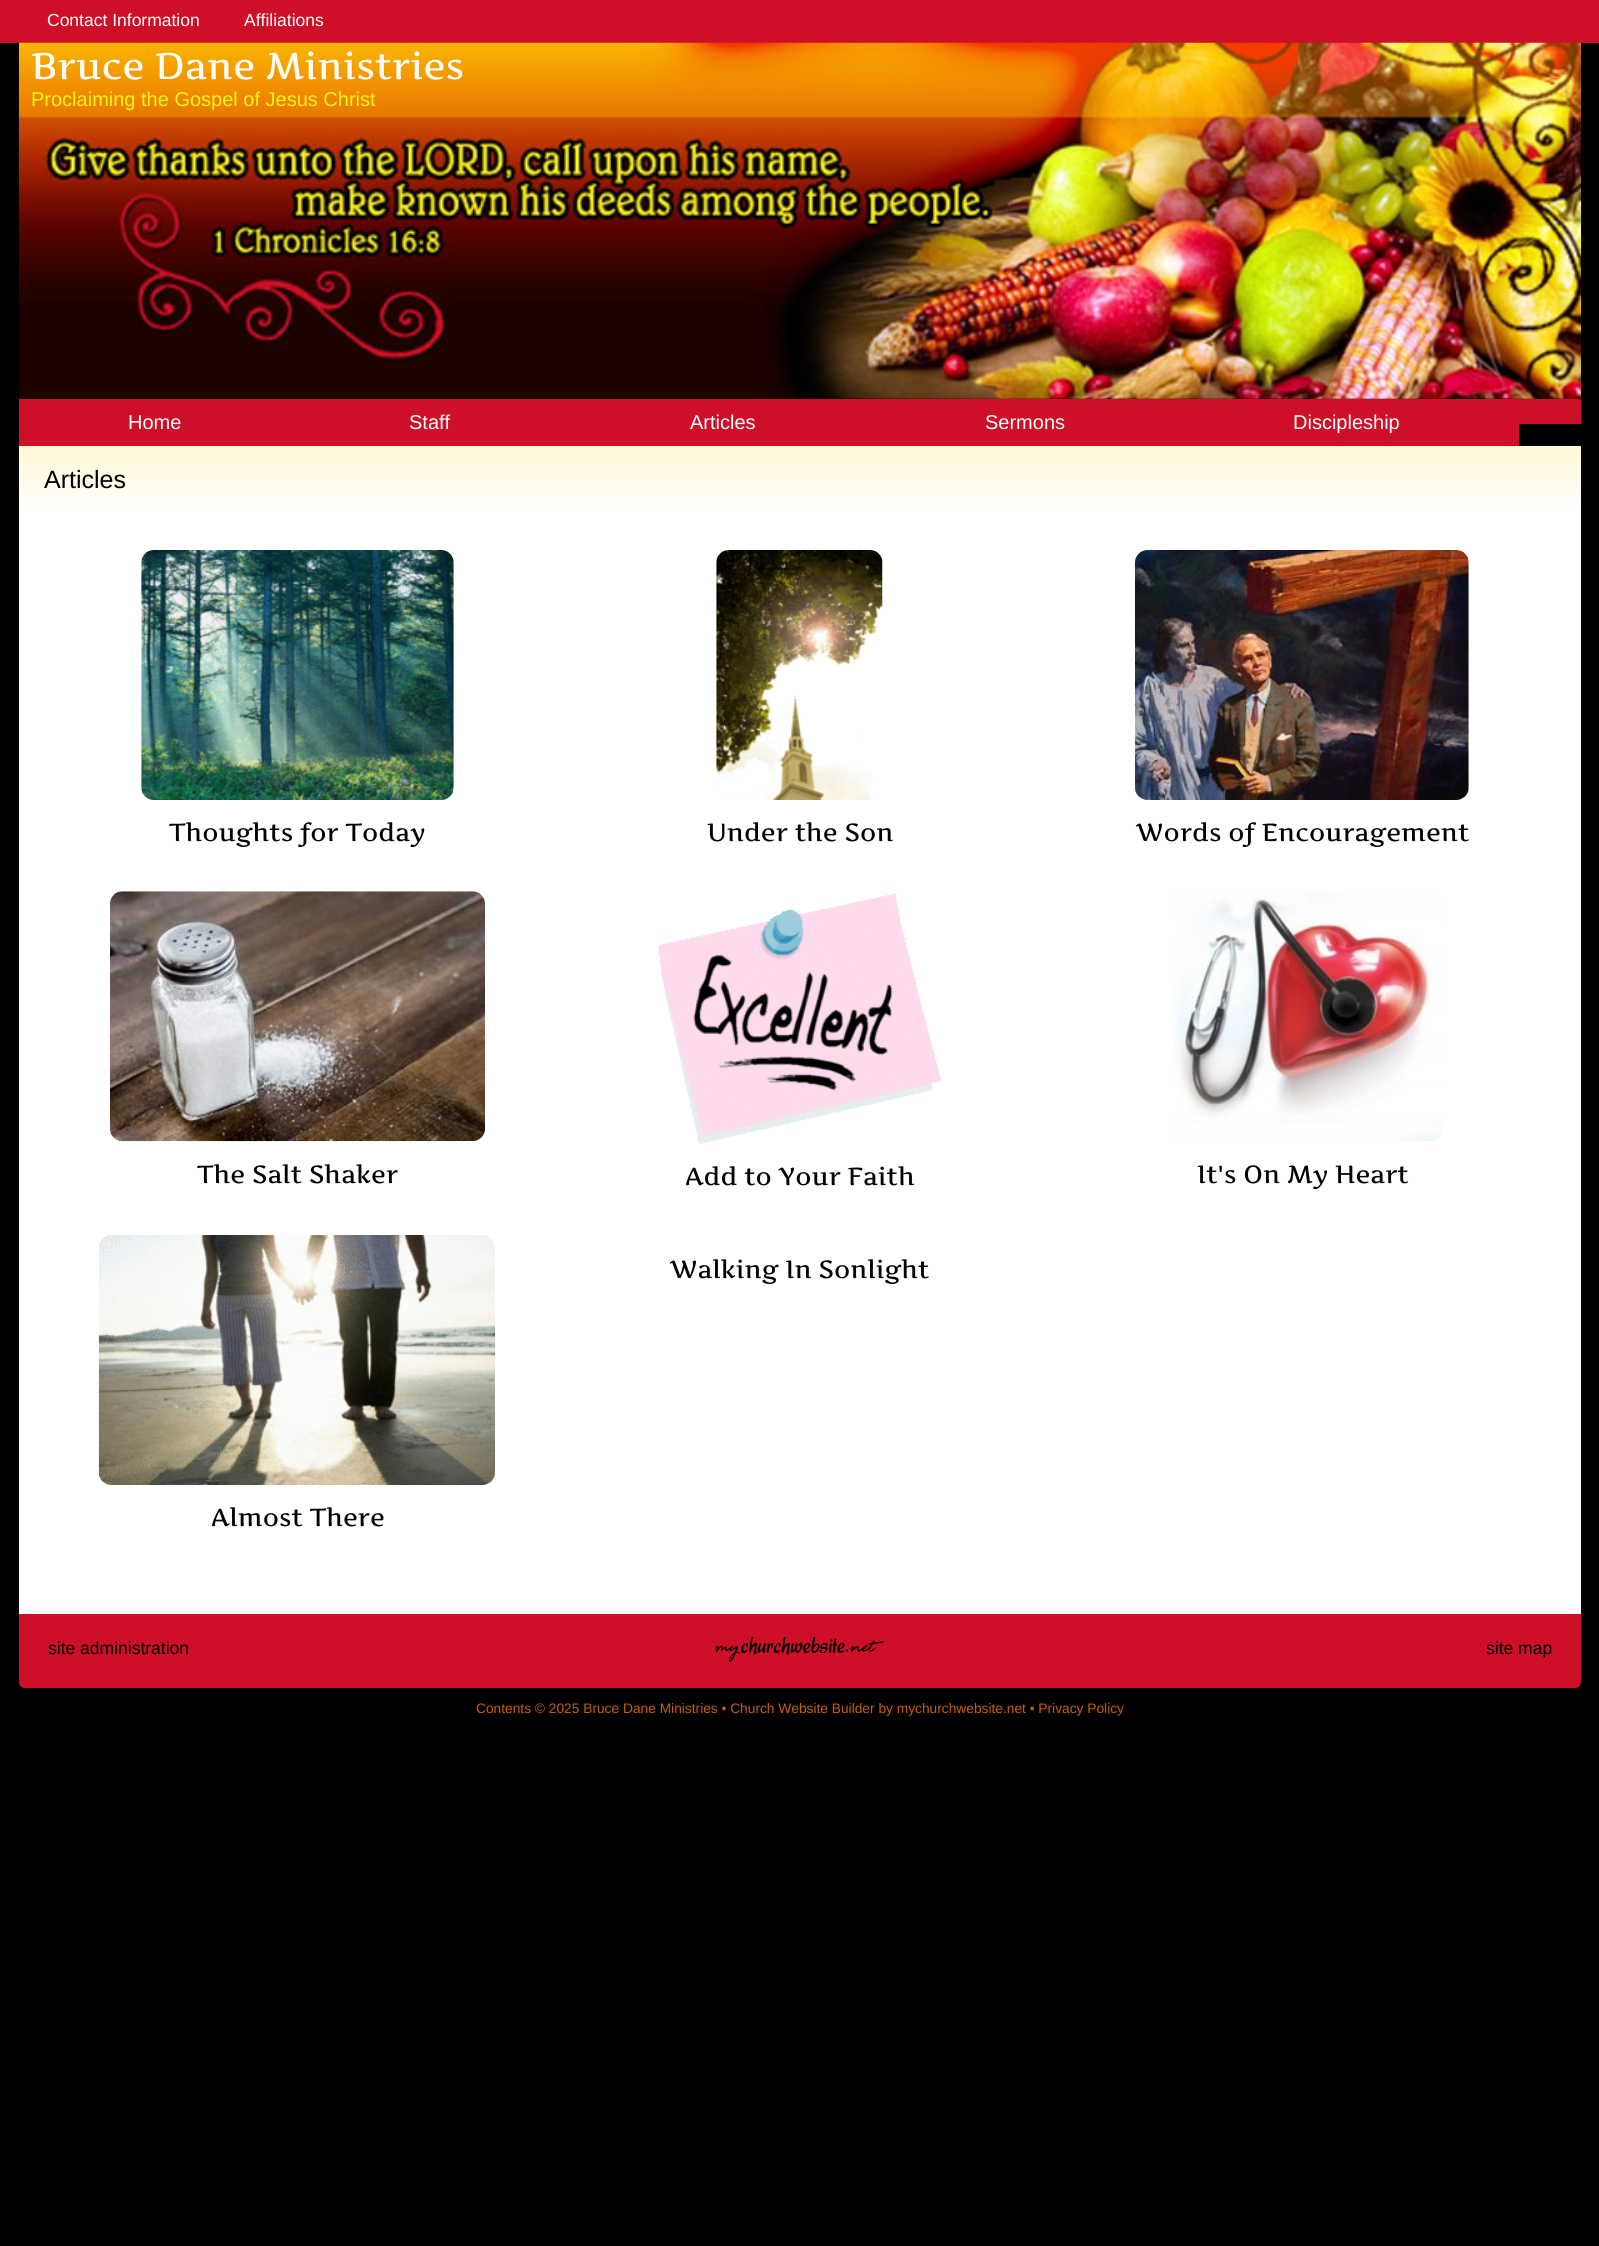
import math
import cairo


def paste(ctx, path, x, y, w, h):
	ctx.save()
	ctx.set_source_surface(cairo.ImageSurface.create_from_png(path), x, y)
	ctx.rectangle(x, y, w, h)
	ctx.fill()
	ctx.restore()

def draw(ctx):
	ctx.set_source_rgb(0, 0, 0)
	ctx.paint()
	ctx.set_source_rgb(0.804, 0.059, 0.153)
	ctx.rectangle(0, 0, 1599, 43)
	ctx.fill()
	ctx.select_font_face('Arimo')
	ctx.set_font_size(17.5)
	ctx.set_source_rgb(1, 1, 1)
	ctx.move_to(47, 26)
	ctx.show_text('Contact Information')
	ctx.move_to(244, 26)
	ctx.show_text('Affiliations')
	paste(ctx, 'media/1.png', 18, 42, 1564, 357)
	ctx.select_font_face('Artifika')
	ctx.set_font_size(37.5)
	ctx.move_to(31, 79)
	ctx.show_text('Bruce Dane Ministries')
	ctx.select_font_face('Liberation Sans')
	ctx.set_font_size(20)
	ctx.set_source_rgb(0.969, 0.953, 0.059)
	ctx.move_to(31, 106)
	ctx.show_text('Proclaiming the Gospel of Jesus Christ')
	ctx.set_source_rgb(0.804, 0.059, 0.153)
	ctx.rectangle(19, 399, 1500, 47)
	ctx.fill()
	ctx.set_source_rgb(1, 1, 1)
	for x, y, s in [
		(128, 429, 'Home'),
		(409, 429, 'Staff'),
		(690, 429, 'Articles'),
		(985, 429, 'Sermons'),
		(1293, 429, 'Discipleship'),
	]:
		ctx.move_to(x, y)
		ctx.show_text(s)
	ctx.set_source_rgb(0.804, 0.059, 0.153)
	ctx.rectangle(1519, 399, 62, 25)
	ctx.fill()
	ctx.set_source_rgb(1, 1, 1)
	ctx.rectangle(19, 513, 1562, 1101)
	ctx.fill()
	gradient = cairo.LinearGradient(800, 446, 800, 513)
	gradient.add_color_stop_rgba(0, 1, 0.973, 0.839, 1)
	gradient.add_color_stop_rgba(1, 1, 1, 1, 1)
	ctx.set_source(gradient)
	ctx.rectangle(19, 446, 1562, 67)
	ctx.fill()
	ctx.set_font_size(25)
	ctx.set_source_rgb(0, 0, 0)
	ctx.move_to(44, 488)
	ctx.show_text('Articles')
	paste(ctx, 'media/2.png', 141, 550, 313, 250)
	ctx.select_font_face('Artifika')
	ctx.move_to(169, 841)
	ctx.show_text('Thoughts for Today')
	paste(ctx, 'media/3.png', 716, 550, 167, 250)
	ctx.move_to(707, 841)
	ctx.show_text('Under the Son')
	paste(ctx, 'media/4.png', 1135, 550, 334, 250)
	ctx.move_to(1136, 841)
	ctx.show_text('Words of Encouragement')
	paste(ctx, 'media/5.png', 110, 891, 375, 251)
	ctx.move_to(197, 1183)
	ctx.show_text('The Salt Shaker')
	paste(ctx, 'media/6.png', 658, 893, 284, 251)
	ctx.move_to(685, 1185)
	ctx.show_text('Add to Your Faith')
	paste(ctx, 'media/7.png', 1173, 891, 269, 250)
	ctx.move_to(1197, 1183)
	ctx.show_text('It\'s On My Heart')
	ctx.move_to(670, 1278)
	ctx.show_text('Walking In Sonlight')
	paste(ctx, 'media/8.png', 98, 1235, 397, 250)
	ctx.move_to(211, 1526)
	ctx.show_text('Almost There')
	ctx.set_source_rgb(0.804, 0.059, 0.153)
	ctx.new_path()
	ctx.move_to(19, 1614)
	ctx.line_to(1581, 1614)
	ctx.line_to(1581, 1682)
	ctx.curve_to(1581, 1685.5, 1578.5, 1688, 1575, 1688)
	ctx.line_to(25, 1688)
	ctx.curve_to(21.5, 1688, 19, 1685.5, 19, 1682)
	ctx.close_path()
	ctx.fill()
	ctx.select_font_face('Arimo')
	ctx.set_font_size(17.5)
	ctx.set_source_rgb(0, 0, 0)
	ctx.move_to(48, 1654)
	ctx.show_text('site administration')
	paste(ctx, 'media/9.png', 715, 1637, 169, 26)
	ctx.move_to(1486, 1654)
	ctx.show_text('site map')
	ctx.set_font_size(13.75)
	ctx.set_source_rgb(0.78, 0.369, 0.02)
	ctx.move_to(476, 1713)
	ctx.show_text('Contents © 2025 Bruce Dane Ministries • Church Website Builder by mychurchwebsite.net • Privacy Policy')


surface = cairo.ImageSurface(cairo.FORMAT_RGB24, 1599, 2246)
ctx = cairo.Context(surface)
options = cairo.FontOptions()
options.set_hint_metrics(cairo.HINT_METRICS_OFF)
options.set_hint_style(cairo.HINT_STYLE_NONE)
ctx.set_font_options(options)
ctx.set_miter_limit(4)
draw(ctx)
surface.write_to_png('image.png')
